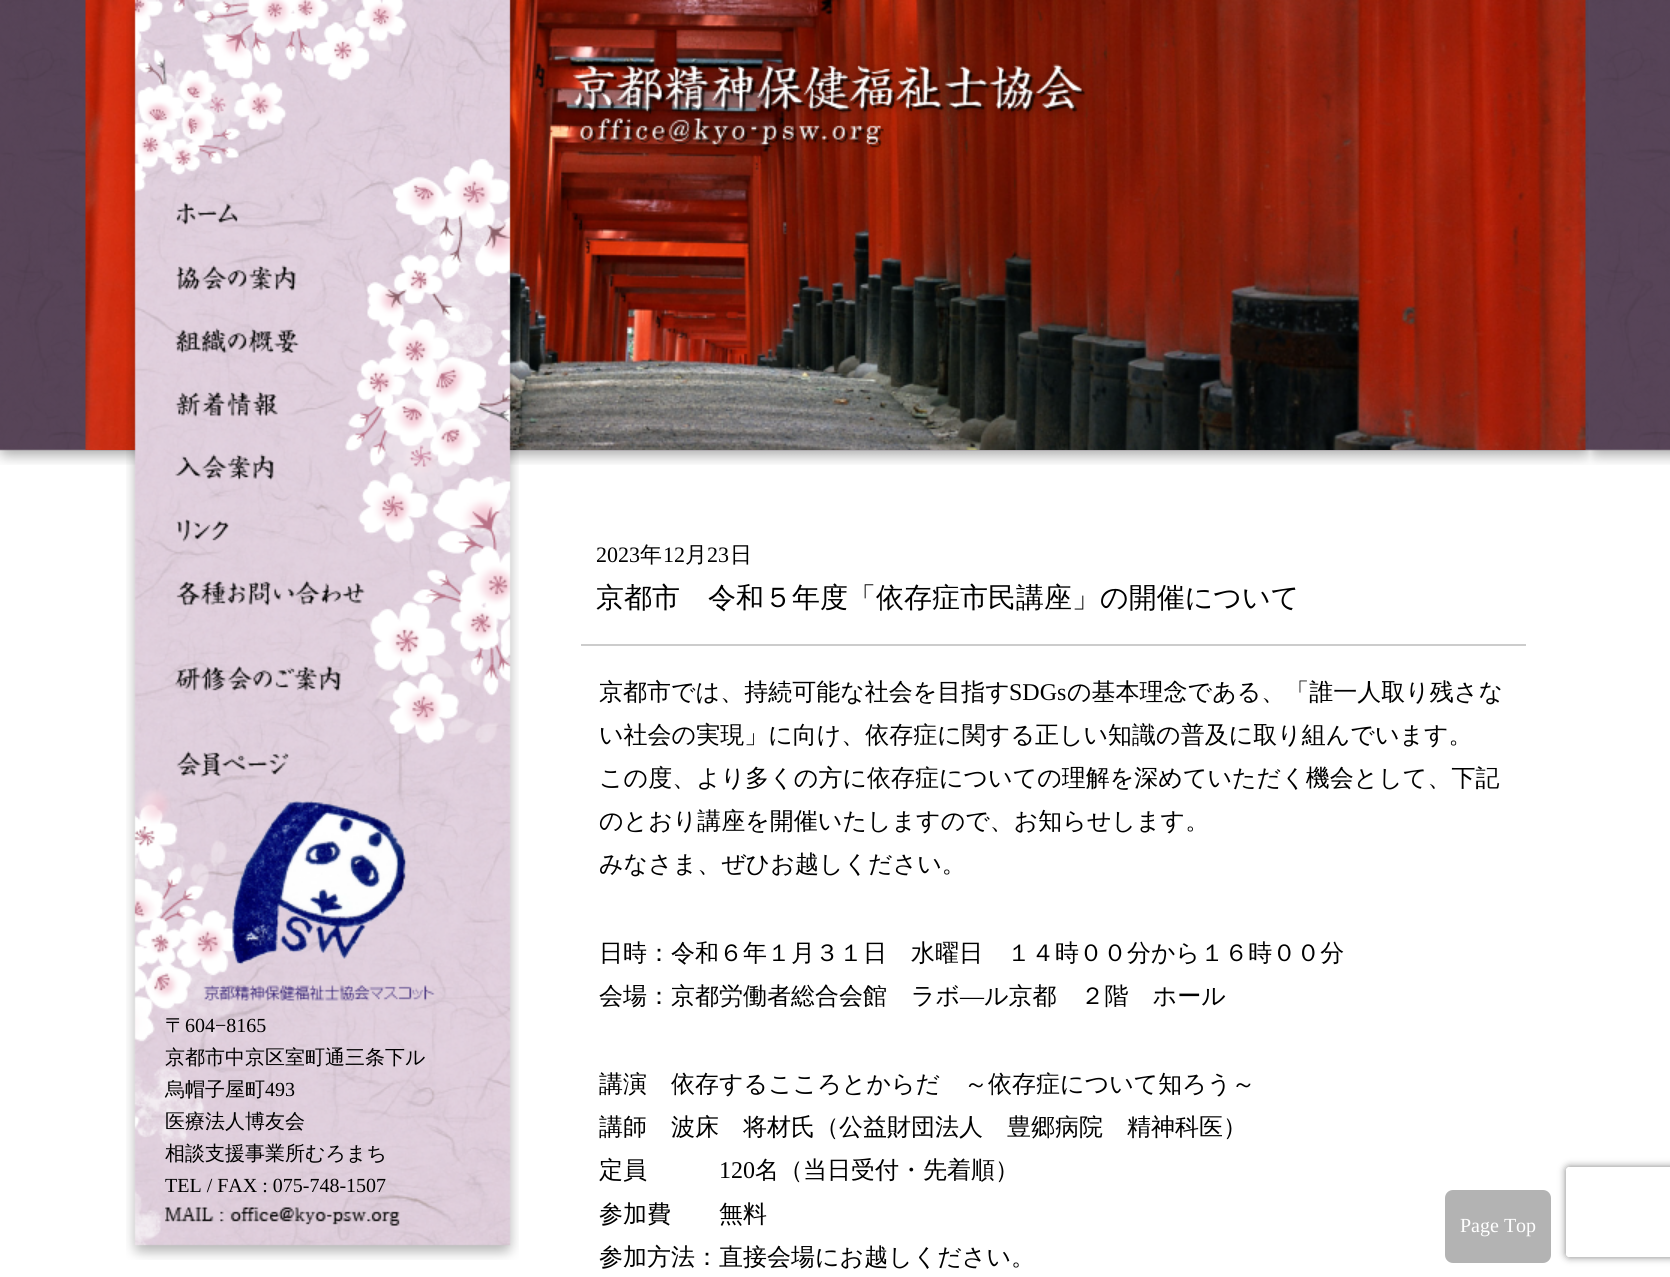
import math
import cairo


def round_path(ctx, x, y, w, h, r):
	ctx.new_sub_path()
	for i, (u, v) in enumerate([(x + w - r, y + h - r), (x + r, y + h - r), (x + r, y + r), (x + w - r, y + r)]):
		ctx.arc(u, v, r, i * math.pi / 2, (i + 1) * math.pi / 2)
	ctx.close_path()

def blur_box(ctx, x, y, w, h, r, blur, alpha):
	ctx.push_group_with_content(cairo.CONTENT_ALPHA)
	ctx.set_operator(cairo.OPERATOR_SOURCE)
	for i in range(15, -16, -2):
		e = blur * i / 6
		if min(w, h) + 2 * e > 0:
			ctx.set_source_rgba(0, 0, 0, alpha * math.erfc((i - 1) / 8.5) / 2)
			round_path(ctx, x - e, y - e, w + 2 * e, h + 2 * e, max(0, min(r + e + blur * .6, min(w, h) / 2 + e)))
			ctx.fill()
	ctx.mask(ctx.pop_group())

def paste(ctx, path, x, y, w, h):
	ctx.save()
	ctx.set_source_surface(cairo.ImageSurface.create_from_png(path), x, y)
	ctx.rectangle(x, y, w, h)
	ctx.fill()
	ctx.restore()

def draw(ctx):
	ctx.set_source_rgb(1, 1, 1)
	ctx.paint()
	paste(ctx, 'media/1.png', 0, 0, 1670, 465)
	paste(ctx, 'media/2.png', 85, 0, 1501, 450)
	paste(ctx, 'media/3.png', 571, 62, 515, 88)
	paste(ctx, 'media/4.png', 126, 0, 393, 1260)
	paste(ctx, 'media/5.png', 176, 202, 62, 24)
	paste(ctx, 'media/6.png', 175, 265, 121, 26)
	paste(ctx, 'media/7.png', 175, 328, 124, 25)
	paste(ctx, 'media/8.png', 175, 391, 103, 26)
	paste(ctx, 'media/9.png', 175, 454, 100, 27)
	paste(ctx, 'media/10.png', 176, 519, 53, 23)
	paste(ctx, 'media/11.png', 176, 580, 189, 27)
	paste(ctx, 'media/12.png', 175, 665, 166, 27)
	paste(ctx, 'media/13.png', 176, 751, 113, 27)
	paste(ctx, 'media/14.png', 203, 800, 232, 201)
	ctx.select_font_face('WenQuanYi Zen Hei Medium')
	ctx.set_font_size(20)
	ctx.set_source_rgb(0, 0, 0)
	ctx.move_to(165, 1032)
	ctx.show_text('〒')
	ctx.select_font_face('Liberation Serif')
	ctx.move_to(185, 1032)
	ctx.show_text('604−8165')
	ctx.select_font_face('WenQuanYi Zen Hei Medium')
	ctx.move_to(165, 1064)
	ctx.show_text('京都市中京区室町通三条下ル')
	ctx.move_to(165, 1096)
	ctx.show_text('烏帽子屋町')
	ctx.select_font_face('Liberation Serif')
	ctx.move_to(265, 1096)
	ctx.show_text('493')
	ctx.select_font_face('WenQuanYi Zen Hei Medium')
	ctx.move_to(165, 1128)
	ctx.show_text('医療法人博友会')
	ctx.move_to(165, 1160)
	ctx.show_text('相談支援事業所むろまち')
	ctx.select_font_face('Liberation Serif')
	ctx.move_to(165, 1192)
	ctx.show_text('TEL / FAX : 075-748-1507')
	paste(ctx, 'media/15.png', 165, 1207, 235, 19)
	ctx.set_font_size(22)
	ctx.move_to(596, 562)
	ctx.show_text('2023')
	ctx.select_font_face('WenQuanYi Zen Hei Medium')
	ctx.move_to(640, 562)
	ctx.show_text('年')
	ctx.select_font_face('Liberation Serif')
	ctx.move_to(663, 562)
	ctx.show_text('12')
	ctx.select_font_face('WenQuanYi Zen Hei Medium')
	ctx.move_to(685, 562)
	ctx.show_text('月')
	ctx.select_font_face('Liberation Serif')
	ctx.move_to(707, 562)
	ctx.show_text('23')
	ctx.select_font_face('WenQuanYi Zen Hei Medium')
	ctx.move_to(730, 562)
	ctx.show_text('日')
	ctx.set_font_size(28)
	ctx.move_to(596, 607)
	ctx.show_text('京都市　令和５年度「依存症市民講座」の開催について')
	ctx.set_source_rgb(0.8, 0.8, 0.8)
	ctx.rectangle(581, 644, 945, 2)
	ctx.fill()
	ctx.set_font_size(24)
	ctx.set_source_rgb(0, 0, 0)
	ctx.move_to(599, 700)
	ctx.show_text('京都市では、持続可能な社会を目指す')
	ctx.select_font_face('Liberation Serif')
	ctx.move_to(1009, 700)
	ctx.show_text('SDGs')
	ctx.select_font_face('WenQuanYi Zen Hei Medium')
	for x, y, s in [
		(1067, 700, 'の基本理念である、「誰一人取り残さな'),
		(599, 743, 'い社会の実現」に向け、依存症に関する正しい知識の普及に取り組んでいます。'),
		(599, 786, 'この度、より多くの方に依存症についての理解を深めていただく機会として、下記'),
		(599, 829, 'のとおり講座を開催いたしますので、お知らせします。'),
		(599, 872, 'みなさま、ぜひお越しください。'),
		(599, 961, '日時：令和６年１月３１日　水曜日　１４時００分から１６時００分'),
		(599, 1004, '会場：京都労働者総合会館　ラボ'),
	]:
		ctx.move_to(x, y)
		ctx.show_text(s)
	ctx.select_font_face('Liberation Serif')
	ctx.move_to(960, 1004)
	ctx.show_text('―')
	ctx.select_font_face('WenQuanYi Zen Hei Medium')
	for x, y, s in [
		(984, 1004, 'ル京都　２階　ホール'),
		(599, 1092, '講演　依存するこころとからだ　～依存症について知ろう～'),
		(599, 1135, '講師　波床　将材氏（公益財団法人　豊郷病院　精神科医）'),
		(599, 1178, '定員'),
	]:
		ctx.move_to(x, y)
		ctx.show_text(s)
	ctx.select_font_face('Liberation Serif')
	ctx.move_to(719, 1178)
	ctx.show_text('120')
	ctx.select_font_face('WenQuanYi Zen Hei Medium')
	for x, y, s in [
		(755, 1178, '名（当日受付・先着順）'),
		(599, 1222, '参加費　　無料'),
		(599, 1265, '参加方法：直接会場にお越しください。'),
	]:
		ctx.move_to(x, y)
		ctx.show_text(s)
	ctx.set_source_rgb(0.702, 0.702, 0.702)
	round_path(ctx, 1445, 1190, 106, 73, 8)
	ctx.fill()
	ctx.select_font_face('Liberation Serif')
	ctx.set_font_size(20)
	ctx.set_source_rgb(1, 1, 1)
	ctx.move_to(1460, 1232)
	ctx.show_text('Page Top')
	ctx.save()
	ctx.set_fill_rule(cairo.FILL_RULE_EVEN_ODD)
	ctx.new_path()
	ctx.move_to(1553, 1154)
	ctx.line_to(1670, 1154)
	ctx.line_to(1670, 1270)
	ctx.line_to(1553, 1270)
	ctx.close_path()
	ctx.move_to(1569, 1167)
	ctx.line_to(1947, 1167)
	ctx.curve_to(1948.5, 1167, 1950, 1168.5, 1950, 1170)
	ctx.line_to(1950, 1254)
	ctx.curve_to(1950, 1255.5, 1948.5, 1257, 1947, 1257)
	ctx.line_to(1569, 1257)
	ctx.curve_to(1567.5, 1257, 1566, 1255.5, 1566, 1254)
	ctx.line_to(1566, 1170)
	ctx.curve_to(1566, 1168.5, 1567.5, 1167, 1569, 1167)
	ctx.close_path()
	ctx.clip()
	ctx.set_source_rgb(0.502, 0.502, 0.502)
	blur_box(ctx, 1566, 1167, 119, 90, 3, 4, 1)
	ctx.restore()


surface = cairo.ImageSurface(cairo.FORMAT_RGB24, 1670, 1277)
ctx = cairo.Context(surface)
options = cairo.FontOptions()
options.set_hint_metrics(cairo.HINT_METRICS_OFF)
options.set_hint_style(cairo.HINT_STYLE_NONE)
ctx.set_font_options(options)
ctx.set_miter_limit(4)
draw(ctx)
surface.write_to_png('image.png')
